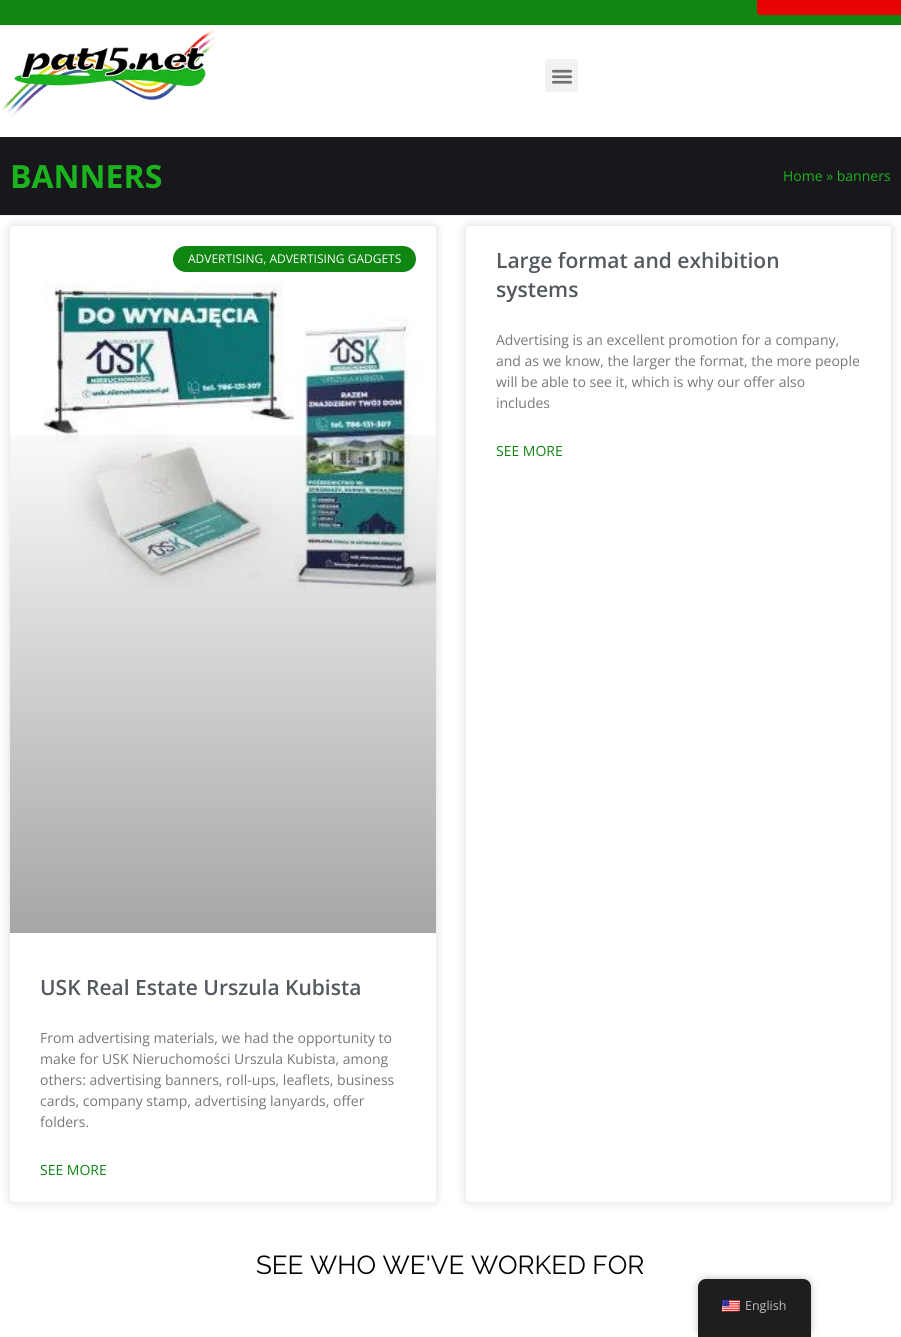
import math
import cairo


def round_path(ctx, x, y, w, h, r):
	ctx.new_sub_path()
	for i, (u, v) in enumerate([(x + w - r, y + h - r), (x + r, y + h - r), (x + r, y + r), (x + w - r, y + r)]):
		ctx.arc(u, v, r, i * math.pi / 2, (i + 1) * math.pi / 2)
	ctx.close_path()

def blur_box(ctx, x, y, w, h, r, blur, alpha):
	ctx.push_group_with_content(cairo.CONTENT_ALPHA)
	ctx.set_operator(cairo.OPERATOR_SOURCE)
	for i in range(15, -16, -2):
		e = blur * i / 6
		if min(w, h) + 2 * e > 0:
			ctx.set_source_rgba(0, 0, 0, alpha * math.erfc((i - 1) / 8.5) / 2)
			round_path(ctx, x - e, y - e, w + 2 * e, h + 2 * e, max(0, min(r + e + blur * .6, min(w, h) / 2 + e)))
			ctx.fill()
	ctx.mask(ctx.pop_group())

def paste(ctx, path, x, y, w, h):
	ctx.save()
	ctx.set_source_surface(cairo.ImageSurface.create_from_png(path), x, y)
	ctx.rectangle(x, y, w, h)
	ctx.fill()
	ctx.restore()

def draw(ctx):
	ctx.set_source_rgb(1, 1, 1)
	ctx.paint()
	ctx.set_source_rgb(0, 0, 0)
	blur_box(ctx, 10, 226, 426, 976, 3, 5, 0.15)
	blur_box(ctx, 466, 226, 425, 976, 3, 5, 0.15)
	ctx.set_source_rgb(0.945, 0.945, 0.945)
	ctx.rectangle(0, 215, 901, 1)
	ctx.fill()
	ctx.set_source_rgb(0.059, 0.522, 0.071)
	ctx.rectangle(0, 0, 901, 25)
	ctx.fill()
	ctx.set_source_rgb(0.914, 0.008, 0.008)
	round_path(ctx, 757, -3, 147, 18, 3)
	ctx.fill()
	paste(ctx, 'media/1.png', 1, 29, 216, 89)
	ctx.set_source_rgb(0.949, 0.949, 0.949)
	round_path(ctx, 545, 59, 33, 33, 3)
	ctx.fill()
	paste(ctx, 'media/2.png', 552, 69, 20, 15)
	ctx.set_source_rgb(0.094, 0.09, 0.106)
	ctx.rectangle(0, 137, 901, 78)
	ctx.fill()
	ctx.select_font_face('Open Sans', cairo.FONT_SLANT_NORMAL, cairo.FONT_WEIGHT_BOLD)
	ctx.set_font_size(32)
	ctx.set_source_rgb(0.106, 0.702, 0.118)
	ctx.move_to(10, 188)
	ctx.show_text('BANNERS')
	ctx.select_font_face('Open Sans')
	ctx.set_font_size(14)
	ctx.move_to(783, 181)
	ctx.show_text('Home » banners')
	ctx.set_source_rgb(1, 1, 1)
	round_path(ctx, 10, 226, 426, 976, 3)
	ctx.fill()
	ctx.set_source_rgb(0.059, 0.522, 0.071)
	round_path(ctx, 173, 246, 243, 26, 13)
	ctx.fill()
	ctx.set_font_size(12)
	ctx.set_source_rgb(1, 1, 1)
	ctx.move_to(188, 263)
	ctx.show_text('ADVERTISING, ADVERTISING GADGETS')
	paste(ctx, 'media/3.png', 42, 283, 394, 307)
	gradient = cairo.LinearGradient(223, 933, 223, 226)
	gradient.add_color_stop_rgba(0, 0, 0, 0, 0.35)
	gradient.add_color_stop_rgba(0.75, 0, 0, 0, 0)
	ctx.set_source(gradient)
	ctx.rectangle(10, 435, 426, 498)
	ctx.fill()
	ctx.select_font_face('Open Sans SemiBold')
	ctx.set_font_size(21)
	ctx.set_source_rgb(0.329, 0.349, 0.373)
	ctx.move_to(40, 995)
	ctx.show_text('USK Real Estate Urszula Kubista')
	ctx.select_font_face('Open Sans')
	ctx.set_font_size(14)
	ctx.set_source_rgb(0.467, 0.467, 0.467)
	for x, y, s in [
		(40, 1043, 'From advertising materials, we had the opportunity to'),
		(40, 1064, 'make for USK Nieruchomości Urszula Kubista, among'),
		(40, 1085, 'others: advertising banners, roll-ups, leaflets, business'),
		(40, 1106, 'cards, company stamp, advertising lanyards, offer'),
		(40, 1127, 'folders.'),
	]:
		ctx.move_to(x, y)
		ctx.show_text(s)
	ctx.set_source_rgb(0.059, 0.522, 0.071)
	ctx.move_to(40, 1175)
	ctx.show_text('SEE MORE')
	ctx.set_source_rgb(1, 1, 1)
	round_path(ctx, 466, 226, 425, 976, 3)
	ctx.fill()
	ctx.select_font_face('Open Sans SemiBold')
	ctx.set_font_size(21)
	ctx.set_source_rgb(0.329, 0.349, 0.373)
	ctx.move_to(496, 268)
	ctx.show_text('Large format and exhibition')
	ctx.move_to(496, 297)
	ctx.show_text('systems')
	ctx.select_font_face('Open Sans')
	ctx.set_font_size(14)
	ctx.set_source_rgb(0.467, 0.467, 0.467)
	for x, y, s in [
		(496, 345, 'Advertising is an excellent promotion for a company,'),
		(496, 366, 'and as we know, the larger the format, the more people'),
		(496, 387, 'will be able to see it, which is why our offer also'),
		(496, 408, 'includes'),
	]:
		ctx.move_to(x, y)
		ctx.show_text(s)
	ctx.set_source_rgb(0.059, 0.522, 0.071)
	ctx.move_to(496, 456)
	ctx.show_text('SEE MORE')
	ctx.select_font_face('Raleway')
	ctx.set_font_size(26)
	ctx.set_source_rgb(0, 0, 0)
	ctx.move_to(256, 1274)
	ctx.show_text('SEE WHO WE\'VE WORKED FOR')
	ctx.set_source_rgb(0, 0, 0)
	blur_box(ctx, 698, 1279, 113, 58, 8, 4, 0.25)
	ctx.set_source_rgb(0.118, 0.118, 0.118)
	ctx.new_path()
	ctx.move_to(706, 1279)
	ctx.line_to(803, 1279)
	ctx.curve_to(807.5, 1279, 811, 1282.5, 811, 1287)
	ctx.line_to(811, 1337)
	ctx.line_to(698, 1337)
	ctx.line_to(698, 1287)
	ctx.curve_to(698, 1282.5, 701.5, 1279, 706, 1279)
	ctx.close_path()
	ctx.fill()
	paste(ctx, 'media/4.png', 722, 1300, 18, 12)
	ctx.select_font_face('Open Sans')
	ctx.set_font_size(12.5)
	ctx.set_source_rgb(0.741, 0.741, 0.741)
	ctx.move_to(745, 1310)
	ctx.show_text('English')


surface = cairo.ImageSurface(cairo.FORMAT_RGB24, 901, 1337)
ctx = cairo.Context(surface)
options = cairo.FontOptions()
options.set_hint_metrics(cairo.HINT_METRICS_OFF)
options.set_hint_style(cairo.HINT_STYLE_NONE)
ctx.set_font_options(options)
ctx.set_miter_limit(4)
draw(ctx)
surface.write_to_png('image.png')
